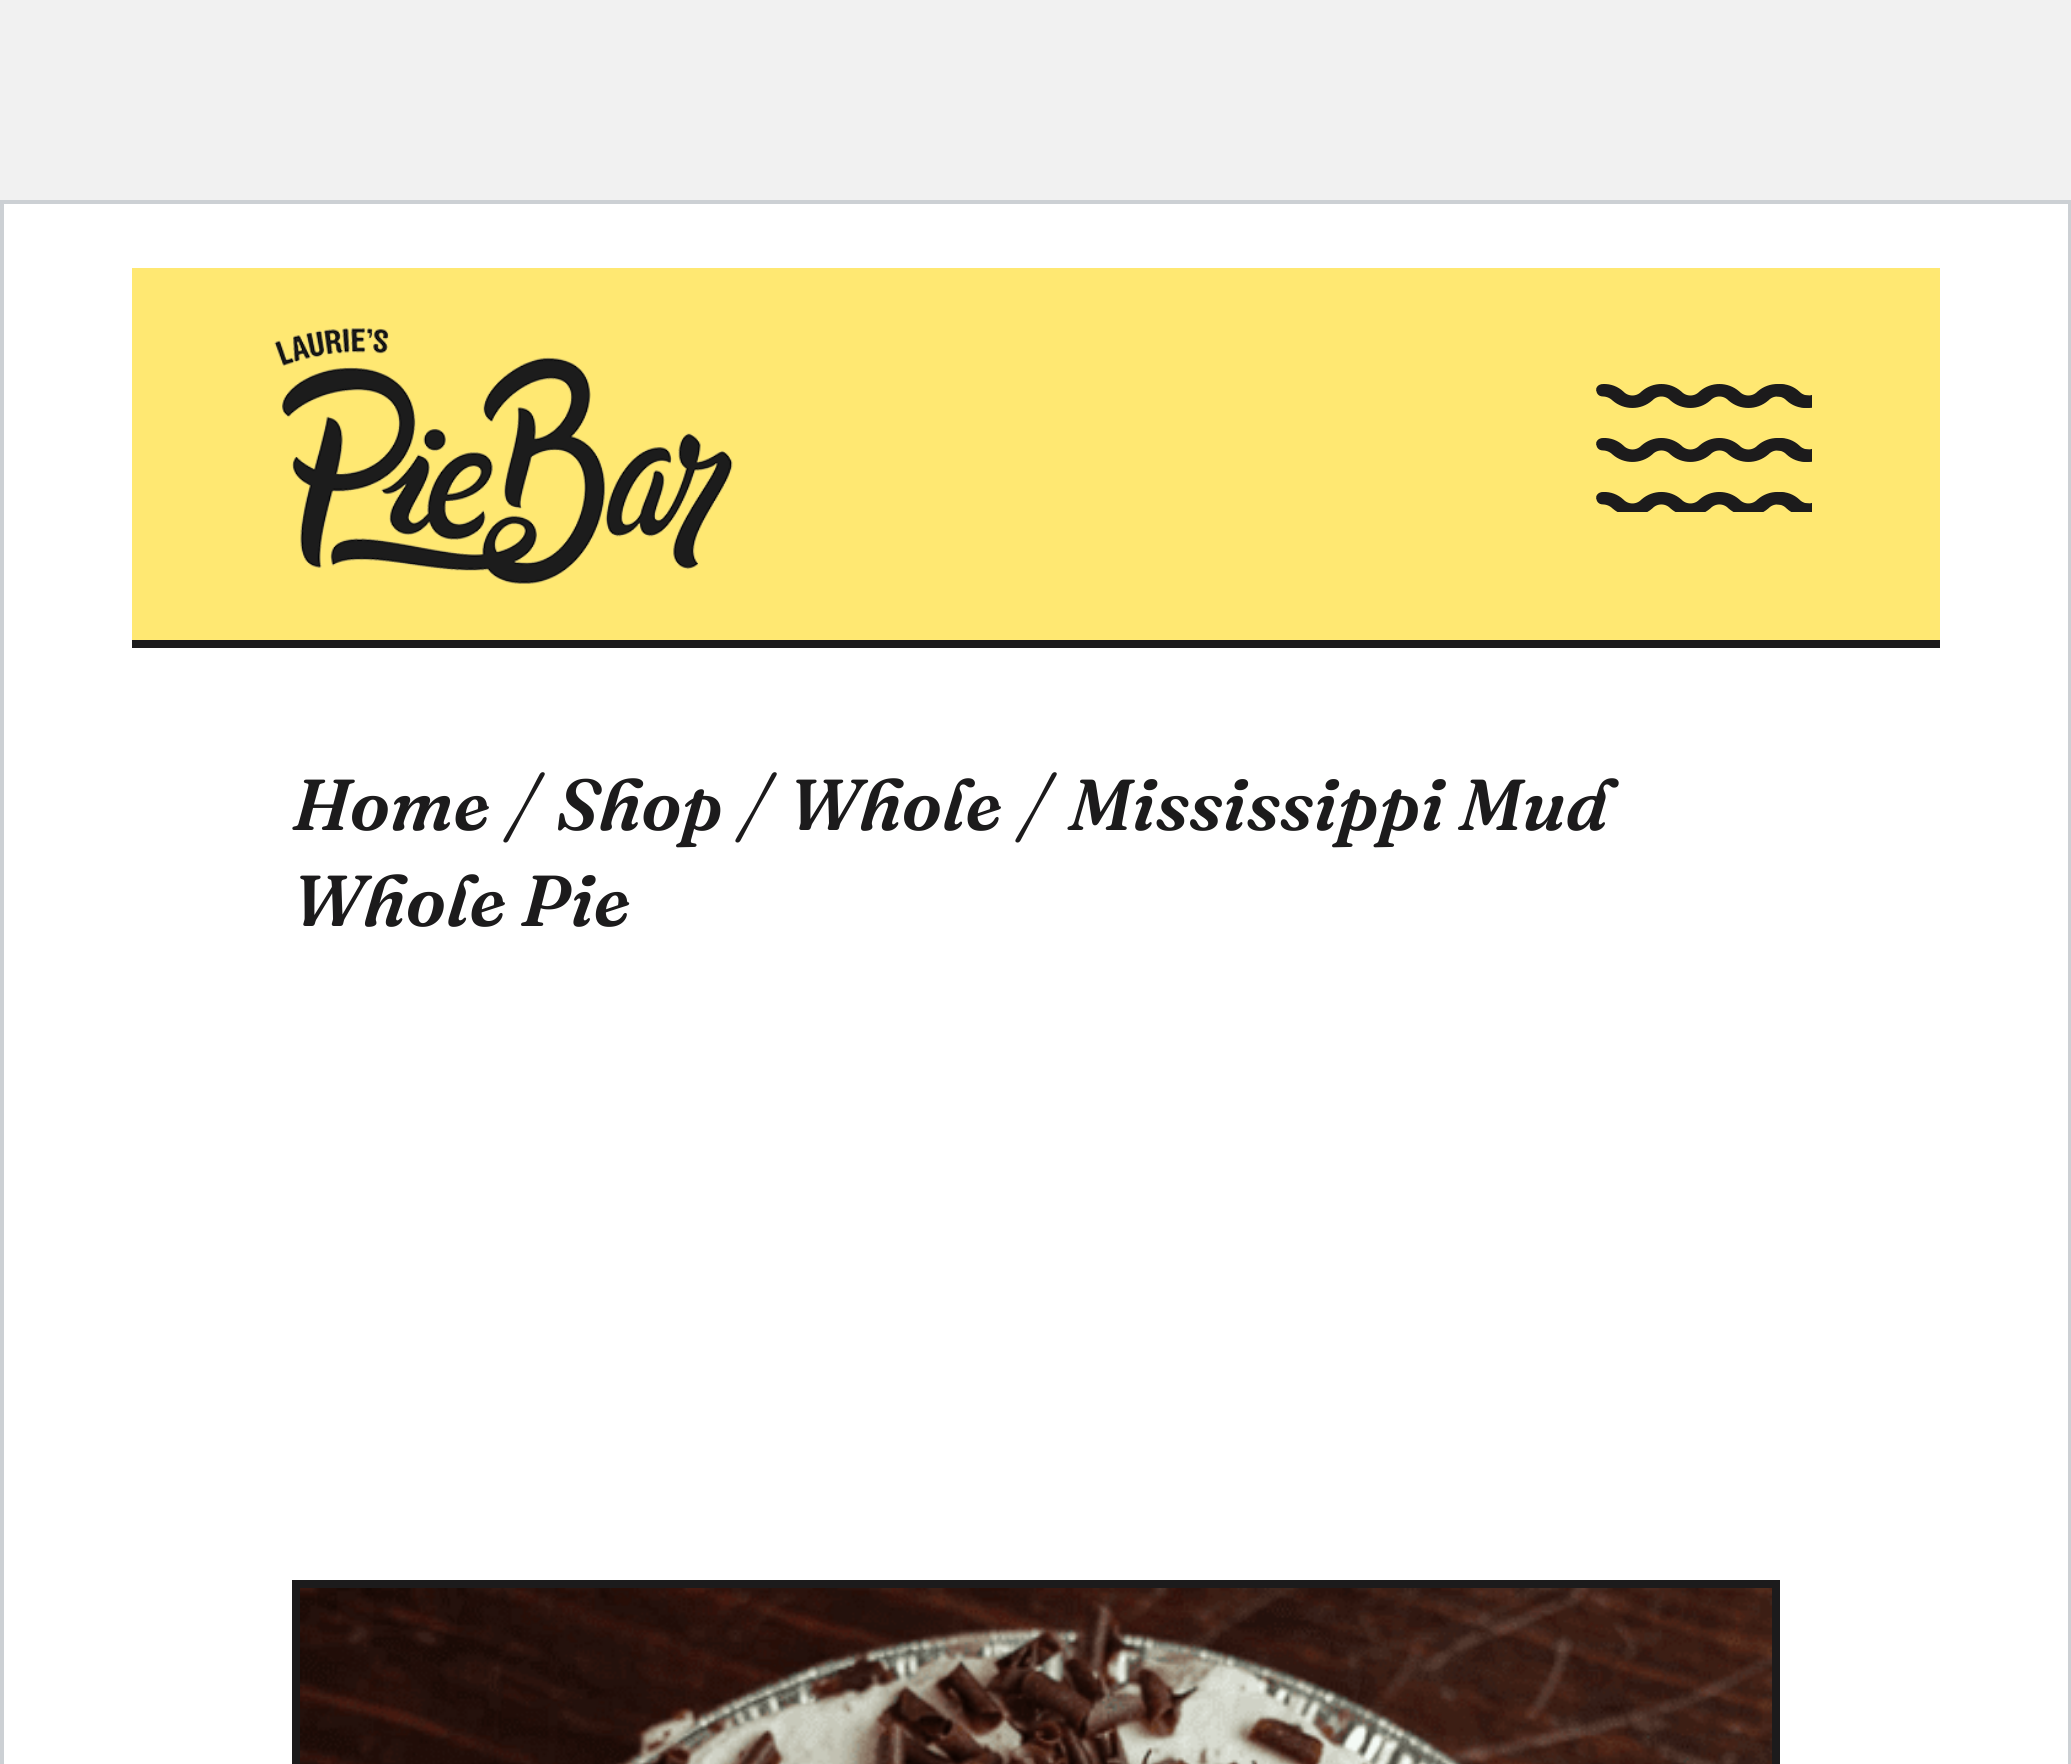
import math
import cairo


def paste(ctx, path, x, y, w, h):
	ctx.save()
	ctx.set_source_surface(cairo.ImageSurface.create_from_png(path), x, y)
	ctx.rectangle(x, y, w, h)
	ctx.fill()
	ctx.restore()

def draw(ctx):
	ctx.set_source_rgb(0.945, 0.945, 0.945)
	ctx.paint()
	ctx.set_source_rgb(1, 1, 1)
	ctx.rectangle(2, 202, 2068, 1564)
	ctx.fill_preserve()
	ctx.set_source_rgb(0.8, 0.816, 0.831)
	ctx.set_line_width(4)
	ctx.stroke()
	ctx.set_source_rgb(1, 0.91, 0.447)
	ctx.rectangle(132, 268, 1808, 372)
	ctx.fill()
	ctx.set_source_rgb(0.11, 0.106, 0.11)
	ctx.rectangle(132, 640, 1808, 8)
	ctx.fill()
	paste(ctx, 'media/1.png', 274, 328, 459, 256)
	paste(ctx, 'media/2.png', 1596, 384, 216, 128)
	ctx.select_font_face('Fraunces SemiBold', cairo.FONT_SLANT_ITALIC)
	ctx.set_font_size(72)
	for x, y, s in [
		(292, 830, 'Home'),
		(506, 830, '/'),
		(556, 830, 'Shop'),
		(738, 830, '/'),
		(788, 830, 'Whole'),
		(1018, 830, '/'),
		(1068, 830, 'Mississippi Mud'),
		(292, 926, 'Whole Pie'),
	]:
		ctx.move_to(x, y)
		ctx.show_text(s)
	ctx.rectangle(296, 1584, 1480, 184)
	ctx.set_line_width(8)
	ctx.stroke()
	paste(ctx, 'media/3.png', 300, 1588, 1472, 176)


surface = cairo.ImageSurface(cairo.FORMAT_RGB24, 2071, 1764)
ctx = cairo.Context(surface)
options = cairo.FontOptions()
options.set_hint_metrics(cairo.HINT_METRICS_OFF)
options.set_hint_style(cairo.HINT_STYLE_NONE)
ctx.set_font_options(options)
ctx.set_miter_limit(4)
draw(ctx)
surface.write_to_png('image.png')
